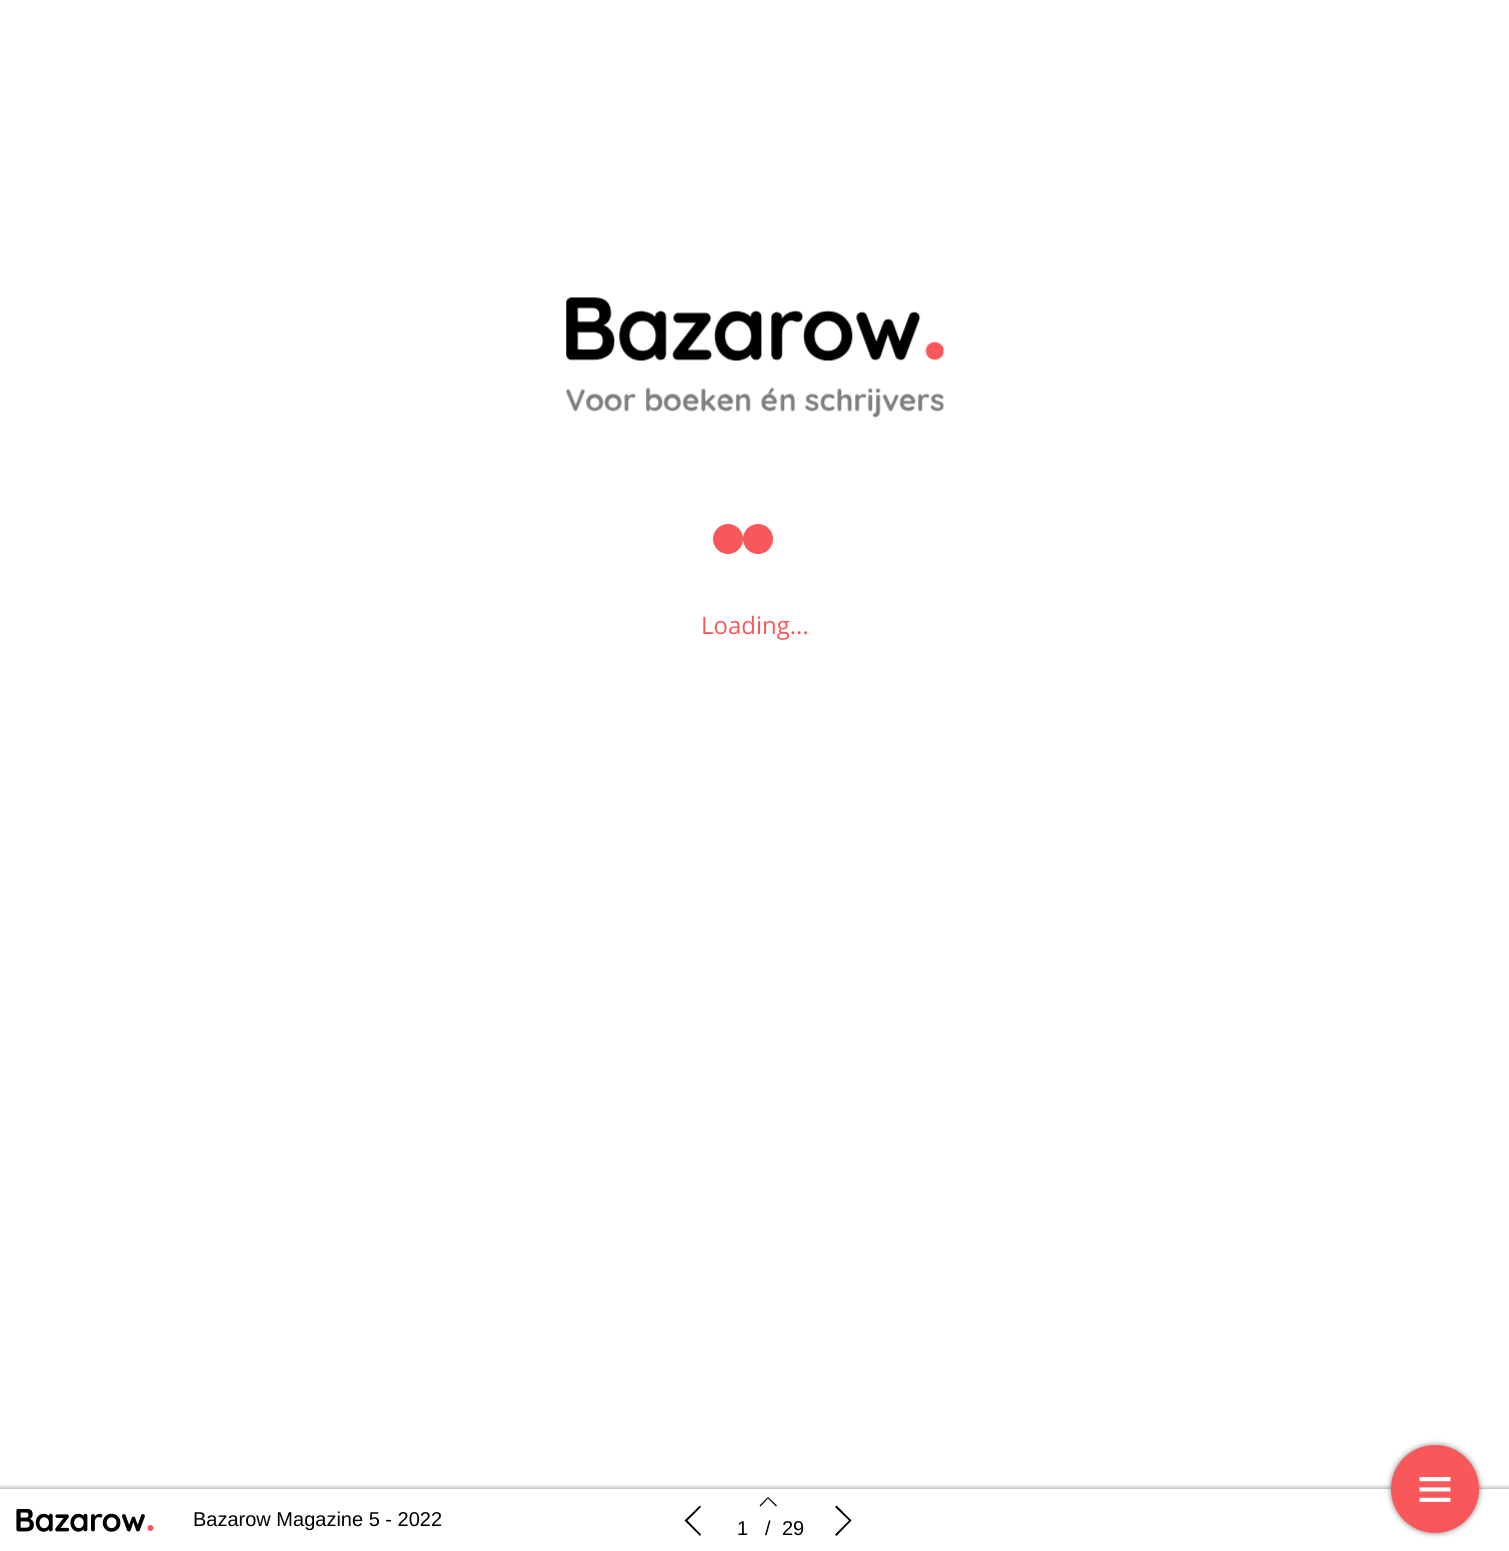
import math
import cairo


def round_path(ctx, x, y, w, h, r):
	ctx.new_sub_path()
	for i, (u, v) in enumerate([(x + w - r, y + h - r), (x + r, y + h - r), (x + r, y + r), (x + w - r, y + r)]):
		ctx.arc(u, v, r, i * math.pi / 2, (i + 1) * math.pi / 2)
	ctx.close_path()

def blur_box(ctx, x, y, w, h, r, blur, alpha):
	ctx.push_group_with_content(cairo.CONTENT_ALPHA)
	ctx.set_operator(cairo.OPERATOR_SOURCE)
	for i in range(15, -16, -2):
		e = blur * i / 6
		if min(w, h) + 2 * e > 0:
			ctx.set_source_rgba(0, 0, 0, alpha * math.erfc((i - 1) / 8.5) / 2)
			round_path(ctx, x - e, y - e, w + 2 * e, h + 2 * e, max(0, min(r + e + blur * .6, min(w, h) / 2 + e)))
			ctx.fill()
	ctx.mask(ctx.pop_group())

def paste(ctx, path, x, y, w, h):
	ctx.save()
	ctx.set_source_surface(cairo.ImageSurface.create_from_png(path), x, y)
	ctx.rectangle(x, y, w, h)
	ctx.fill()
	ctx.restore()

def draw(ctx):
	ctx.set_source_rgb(1, 1, 1)
	ctx.paint()
	paste(ctx, 'media/1.png', 566, 297, 378, 121)
	ctx.set_source_rgb(0.976, 0.341, 0.349)
	ctx.arc(758, 539, 15, 0, 2 * math.pi)
	ctx.fill()
	ctx.arc(728, 539, 15, 0, 2 * math.pi)
	ctx.fill()
	ctx.select_font_face('Open Sans')
	ctx.set_font_size(24)
	ctx.move_to(701, 634)
	ctx.show_text('Loading...')
	ctx.save()
	ctx.rectangle(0, 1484, 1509, 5)
	ctx.clip()
	ctx.set_source_rgb(0, 0, 0)
	blur_box(ctx, 0, 1489, 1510, 62, 0, 3, 0.5)
	ctx.restore()
	paste(ctx, 'media/2.png', 16, 1509, 138, 23)
	ctx.select_font_face('Liberation Sans')
	ctx.set_font_size(20)
	ctx.set_source_rgb(0, 0, 0)
	ctx.move_to(193, 1526)
	ctx.show_text('Bazarow Magazine 5 - 2022')
	ctx.new_path()
	ctx.move_to(687.5, 1520.5)
	ctx.line_to(701, 1534.5)
	ctx.line_to(700, 1536)
	ctx.line_to(684.5, 1520.5)
	ctx.line_to(700, 1505.5)
	ctx.line_to(701, 1507)
	ctx.close_path()
	ctx.fill()
	ctx.new_path()
	ctx.move_to(777, 1505.5)
	ctx.line_to(776, 1506.5)
	ctx.line_to(768, 1498.5)
	ctx.line_to(760.5, 1506.5)
	ctx.line_to(759.5, 1505.5)
	ctx.line_to(768, 1497)
	ctx.close_path()
	ctx.fill()
	for x, y, s in [
		(737, 1535, '1'),
		(765, 1535, '/'),
		(782, 1535, '29'),
	]:
		ctx.move_to(x, y)
		ctx.show_text(s)
	ctx.new_path()
	ctx.move_to(851.5, 1520.5)
	ctx.line_to(836.5, 1536)
	ctx.line_to(835, 1534.5)
	ctx.line_to(849, 1520.5)
	ctx.line_to(835, 1507)
	ctx.line_to(836.5, 1505.5)
	ctx.close_path()
	ctx.fill()
	ctx.set_source_rgb(0, 0, 0)
	blur_box(ctx, 1391, 1445, 88, 88, 44, 3, 0.5)
	ctx.set_source_rgb(0.976, 0.341, 0.349)
	ctx.arc(1435, 1489, 44, 0, 2 * math.pi)
	ctx.fill()
	paste(ctx, 'media/3.png', 1419, 1477, 32, 25)


surface = cairo.ImageSurface(cairo.FORMAT_RGB24, 1509, 1551)
ctx = cairo.Context(surface)
options = cairo.FontOptions()
options.set_hint_metrics(cairo.HINT_METRICS_OFF)
options.set_hint_style(cairo.HINT_STYLE_NONE)
ctx.set_font_options(options)
ctx.set_miter_limit(4)
draw(ctx)
surface.write_to_png('image.png')
